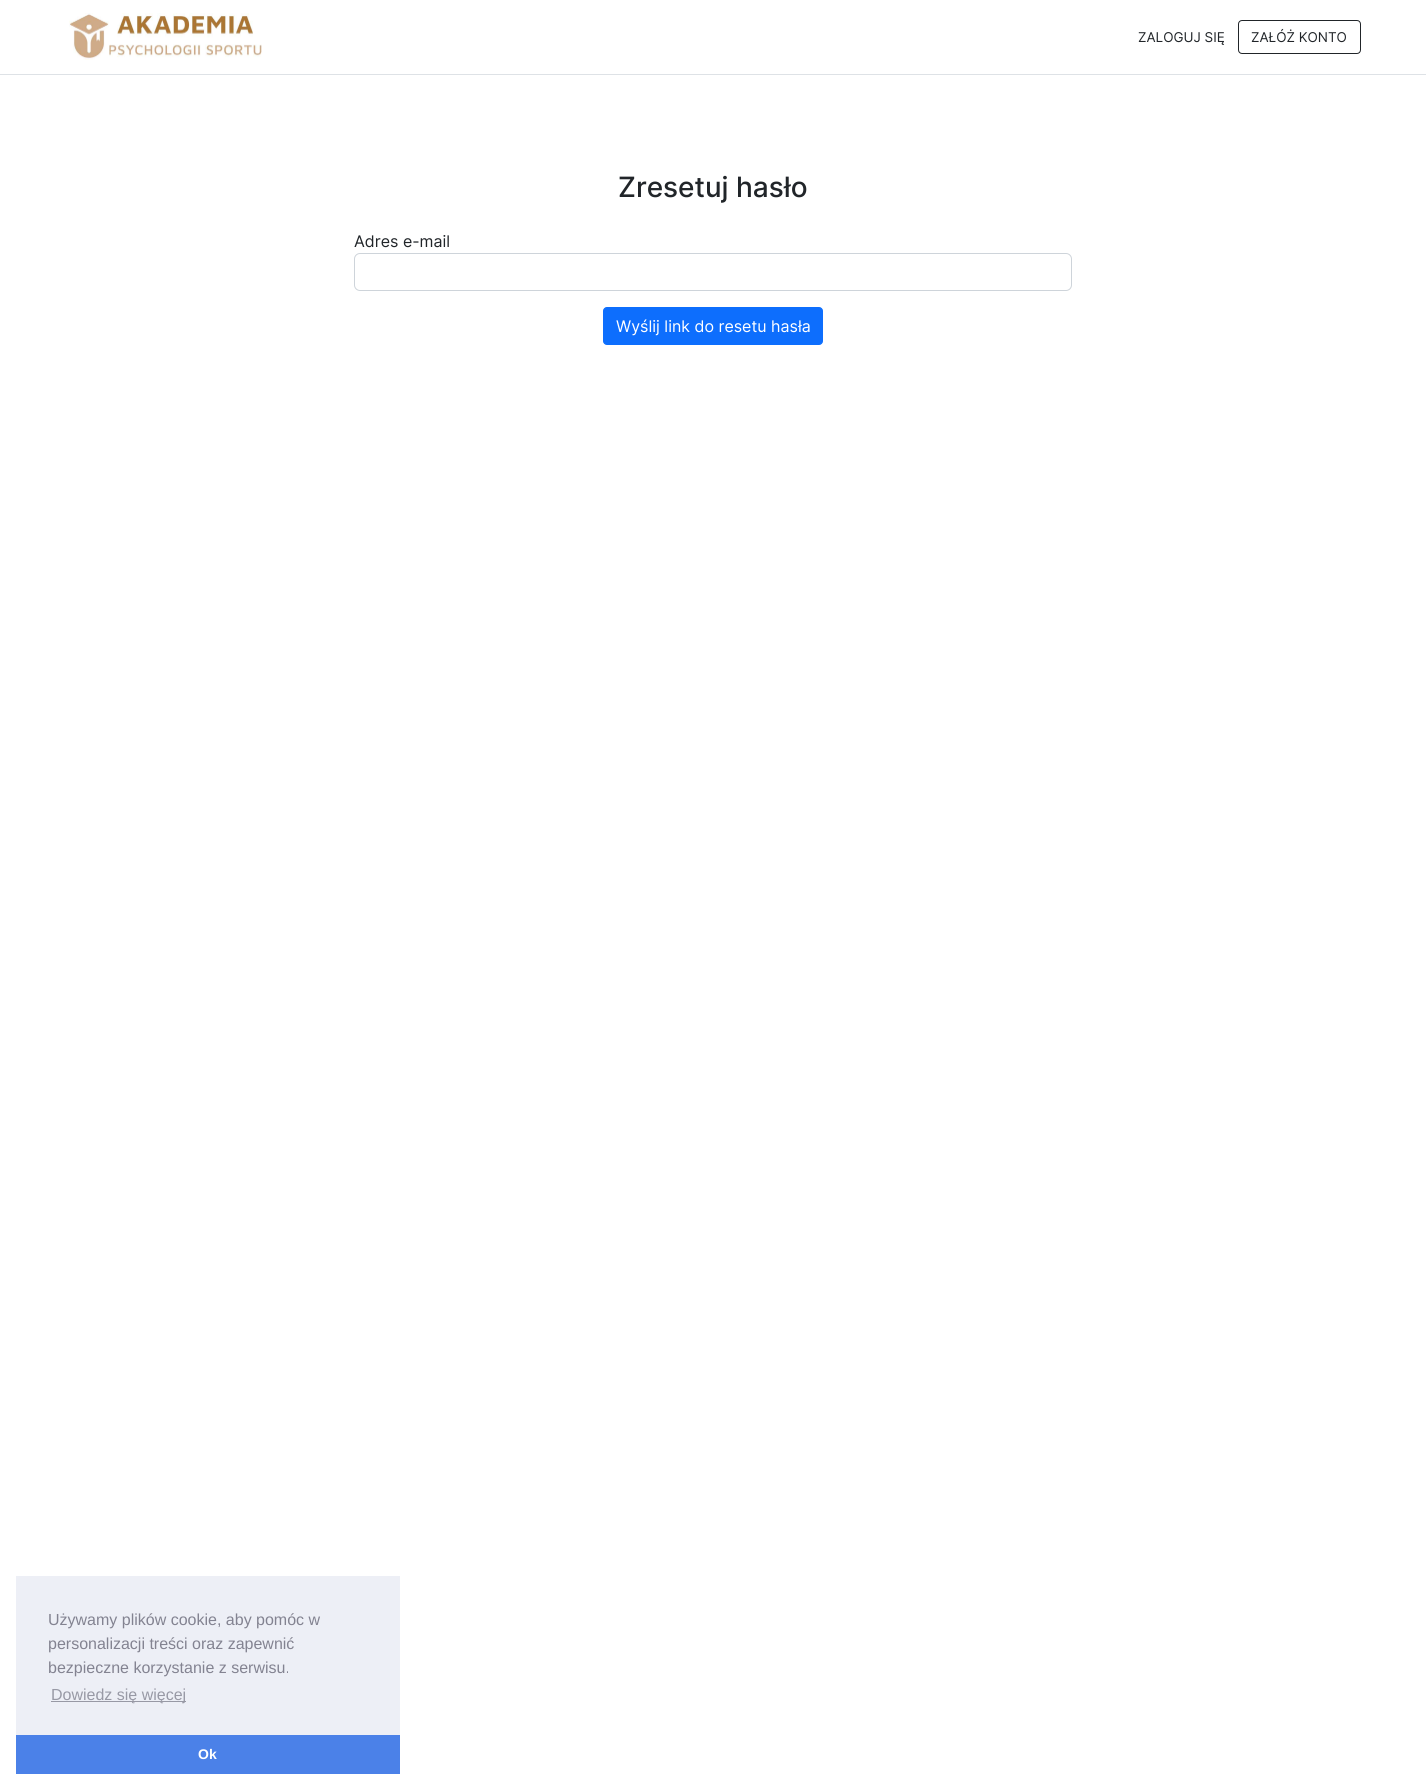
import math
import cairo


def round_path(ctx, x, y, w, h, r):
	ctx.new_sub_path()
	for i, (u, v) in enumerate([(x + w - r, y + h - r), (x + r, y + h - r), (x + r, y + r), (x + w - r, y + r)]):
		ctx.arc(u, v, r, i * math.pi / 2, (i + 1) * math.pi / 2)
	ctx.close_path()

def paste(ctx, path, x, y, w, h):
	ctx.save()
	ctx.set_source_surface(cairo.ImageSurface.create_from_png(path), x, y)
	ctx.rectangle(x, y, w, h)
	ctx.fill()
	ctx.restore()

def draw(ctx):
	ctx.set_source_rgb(1, 1, 1)
	ctx.paint()
	ctx.set_source_rgb(0.871, 0.886, 0.902)
	ctx.rectangle(0, 74, 1426, 1)
	ctx.fill()
	paste(ctx, 'media/1.png', 69, 13, 193, 47)
	ctx.select_font_face('Inter')
	ctx.set_font_size(13.5)
	ctx.set_source_rgb(0.129, 0.145, 0.161)
	ctx.move_to(1138, 42)
	ctx.show_text('ZALOGUJ SIĘ')
	round_path(ctx, 1238.5, 20.5, 122, 33, 3.5)
	ctx.set_line_width(1)
	ctx.stroke()
	ctx.move_to(1251, 42)
	ctx.show_text('ZAŁÓŻ KONTO')
	ctx.select_font_face('Inter Medium')
	ctx.set_font_size(28)
	ctx.move_to(618, 197)
	ctx.show_text('Zresetuj hasło')
	ctx.select_font_face('Inter')
	ctx.set_font_size(16)
	ctx.move_to(354, 247)
	ctx.show_text('Adres e-mail')
	round_path(ctx, 354.5, 253.5, 717, 37, 5.5)
	ctx.set_source_rgb(0.808, 0.831, 0.855)
	ctx.stroke()
	ctx.set_source_rgb(0.051, 0.431, 0.992)
	round_path(ctx, 603.5, 307.5, 219, 37, 3.5)
	ctx.fill_preserve()
	ctx.stroke()
	ctx.set_source_rgb(1, 1, 1)
	ctx.move_to(616, 332)
	ctx.show_text('Wyślij link do resetu hasła')
	ctx.set_source_rgb(0.929, 0.937, 0.961)
	ctx.rectangle(16, 1576, 384, 159)
	ctx.fill()
	ctx.select_font_face('Liberation Sans')
	ctx.set_source_rgb(0.514, 0.514, 0.569)
	for x, y, s in [
		(48, 1625, 'Używamy plików cookie, aby pomóc w'),
		(48, 1649, 'personalizacji treści oraz zapewnić'),
		(48, 1673, 'bezpieczne korzystanie z serwisu.'),
	]:
		ctx.move_to(x, y)
		ctx.show_text(s)
	ctx.set_source_rgb(0.596, 0.6, 0.647)
	ctx.rectangle(51, 1701, 135, 1)
	ctx.fill()
	ctx.move_to(51, 1700)
	ctx.show_text('Dowiedz się więcej')
	ctx.set_source_rgb(0.294, 0.506, 0.91)
	ctx.rectangle(16, 1735, 384, 39)
	ctx.fill()
	ctx.select_font_face('Liberation Sans', cairo.FONT_SLANT_NORMAL, cairo.FONT_WEIGHT_BOLD)
	ctx.set_font_size(14)
	ctx.set_source_rgb(1, 1, 1)
	ctx.move_to(198, 1759)
	ctx.show_text('Ok')


surface = cairo.ImageSurface(cairo.FORMAT_RGB24, 1426, 1790)
ctx = cairo.Context(surface)
options = cairo.FontOptions()
options.set_hint_metrics(cairo.HINT_METRICS_OFF)
options.set_hint_style(cairo.HINT_STYLE_NONE)
ctx.set_font_options(options)
ctx.set_miter_limit(4)
draw(ctx)
surface.write_to_png('image.png')
